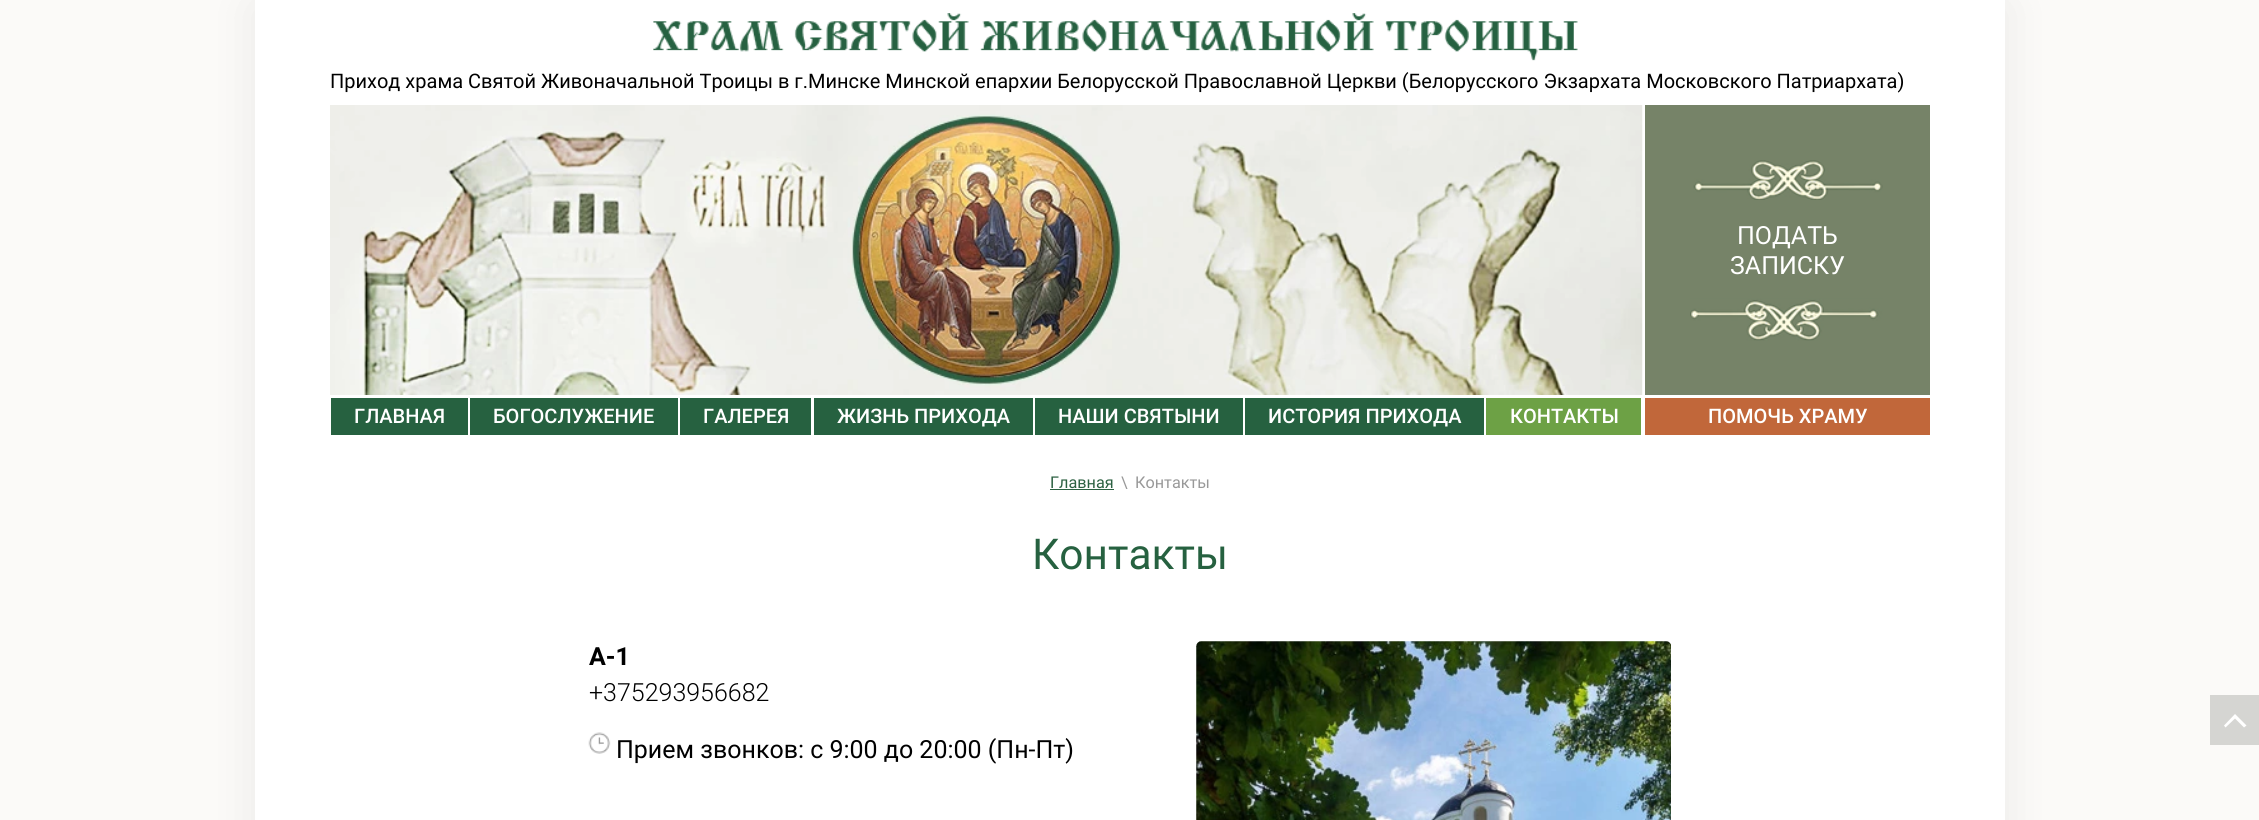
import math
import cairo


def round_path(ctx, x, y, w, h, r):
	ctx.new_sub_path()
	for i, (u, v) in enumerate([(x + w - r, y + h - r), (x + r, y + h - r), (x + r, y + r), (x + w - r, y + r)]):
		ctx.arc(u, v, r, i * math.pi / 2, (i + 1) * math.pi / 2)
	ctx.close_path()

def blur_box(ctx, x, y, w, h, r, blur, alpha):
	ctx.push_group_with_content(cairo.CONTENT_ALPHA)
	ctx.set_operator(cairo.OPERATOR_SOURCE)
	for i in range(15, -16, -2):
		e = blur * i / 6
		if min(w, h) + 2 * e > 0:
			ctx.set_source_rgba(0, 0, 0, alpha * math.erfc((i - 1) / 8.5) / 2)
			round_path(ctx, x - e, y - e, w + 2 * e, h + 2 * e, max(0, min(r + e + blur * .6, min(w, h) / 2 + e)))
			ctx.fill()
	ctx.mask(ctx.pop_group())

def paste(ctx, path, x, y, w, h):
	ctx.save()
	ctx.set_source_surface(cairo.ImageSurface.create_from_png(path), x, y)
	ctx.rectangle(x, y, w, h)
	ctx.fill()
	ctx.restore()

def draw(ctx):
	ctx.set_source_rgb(0.984, 0.98, 0.969)
	ctx.paint()
	ctx.set_source_rgb(0, 0, 0)
	blur_box(ctx, 255, 6, 1750, 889, 0, 25, 0.07)
	ctx.set_source_rgb(1, 1, 1)
	ctx.rectangle(255, 0, 1750, 820)
	ctx.fill()
	paste(ctx, 'media/1.png', 653, 13, 925, 48)
	ctx.select_font_face('Roboto')
	ctx.set_font_size(20)
	ctx.set_source_rgb(0, 0, 0)
	ctx.move_to(330, 88)
	ctx.show_text('Приход храма Святой Живоначальной Троицы в г.Минске Минской епархии Белорусской Православной Церкви (Белорусского Экзархата Московского Патриархата)')
	paste(ctx, 'media/2.png', 330, 105, 1313, 290)
	ctx.set_source_rgb(0.463, 0.514, 0.408)
	ctx.rectangle(1645, 105, 285, 290)
	ctx.fill()
	paste(ctx, 'media/3.png', 1690, 160, 193, 181)
	ctx.set_font_size(25)
	ctx.set_source_rgb(1, 1, 1)
	ctx.move_to(1737, 244)
	ctx.show_text('ПОДАТЬ')
	ctx.move_to(1730, 274)
	ctx.show_text('ЗАПИСКУ')
	ctx.set_source_rgb(0.149, 0.38, 0.251)
	ctx.rectangle(331, 398, 137, 37)
	ctx.fill()
	ctx.select_font_face('Roboto Medium')
	ctx.set_font_size(20)
	ctx.set_source_rgb(1, 1, 1)
	ctx.move_to(354, 423)
	ctx.show_text('ГЛАВНАЯ')
	ctx.set_source_rgb(0.149, 0.38, 0.251)
	ctx.rectangle(470, 398, 208, 37)
	ctx.fill()
	ctx.set_source_rgb(1, 1, 1)
	ctx.move_to(493, 423)
	ctx.show_text('БОГОСЛУЖЕНИЕ')
	ctx.set_source_rgb(0.149, 0.38, 0.251)
	ctx.rectangle(680, 398, 131, 37)
	ctx.fill()
	ctx.set_source_rgb(1, 1, 1)
	ctx.move_to(703, 423)
	ctx.show_text('ГАЛЕРЕЯ')
	ctx.set_source_rgb(0.149, 0.38, 0.251)
	ctx.rectangle(814, 398, 219, 37)
	ctx.fill()
	ctx.set_source_rgb(1, 1, 1)
	ctx.move_to(837, 423)
	ctx.show_text('ЖИЗНЬ ПРИХОДА')
	ctx.set_source_rgb(0.149, 0.38, 0.251)
	ctx.rectangle(1035, 398, 208, 37)
	ctx.fill()
	ctx.set_source_rgb(1, 1, 1)
	ctx.move_to(1058, 423)
	ctx.show_text('НАШИ СВЯТЫНИ')
	ctx.set_source_rgb(0.149, 0.38, 0.251)
	ctx.rectangle(1245, 398, 239, 37)
	ctx.fill()
	ctx.set_source_rgb(1, 1, 1)
	ctx.move_to(1268, 423)
	ctx.show_text('ИСТОРИЯ ПРИХОДА')
	ctx.set_source_rgb(0.427, 0.631, 0.271)
	ctx.rectangle(1486, 398, 155, 37)
	ctx.fill()
	ctx.set_source_rgb(1, 1, 1)
	ctx.move_to(1510, 423)
	ctx.show_text('КОНТАКТЫ')
	ctx.set_source_rgb(0.757, 0.404, 0.227)
	ctx.rectangle(1645, 398, 285, 37)
	ctx.fill()
	ctx.set_source_rgb(1, 1, 1)
	ctx.move_to(1708, 423)
	ctx.show_text('ПОМОЧЬ ХРАМУ')
	ctx.select_font_face('Roboto')
	ctx.set_font_size(16.25)
	ctx.set_source_rgb(0.173, 0.38, 0.259)
	ctx.move_to(1050, 488)
	ctx.show_text('Главная')
	ctx.rectangle(1050, 489, 64, 1)
	ctx.fill()
	ctx.set_source_rgb(0.6, 0.6, 0.6)
	ctx.move_to(1121, 488)
	ctx.show_text('\\')
	ctx.move_to(1135, 488)
	ctx.show_text('Контакты')
	ctx.set_font_size(42.5)
	ctx.set_source_rgb(0.149, 0.38, 0.251)
	ctx.move_to(1032, 569)
	ctx.show_text('Контакты')
	ctx.select_font_face('Roboto', cairo.FONT_SLANT_NORMAL, cairo.FONT_WEIGHT_BOLD)
	ctx.set_font_size(25)
	ctx.set_source_rgb(0, 0, 0)
	ctx.move_to(589, 665)
	ctx.show_text('А-1')
	ctx.select_font_face('Roboto Light')
	ctx.move_to(589, 701)
	ctx.show_text('+375293956682')
	paste(ctx, 'media/4.png', 588, 732, 23, 22)
	ctx.select_font_face('Roboto')
	ctx.move_to(616, 758)
	ctx.show_text('Прием звонков: с 9:00 до 20:00 (Пн-Пт)')
	paste(ctx, 'media/5.png', 1196, 641, 475, 179)
	ctx.set_source_rgb(0.835, 0.835, 0.824)
	ctx.rectangle(2210, 695, 49, 50)
	ctx.fill()
	ctx.set_source_rgb(1, 1, 1)
	ctx.set_fill_rule(cairo.FILL_RULE_EVEN_ODD)
	ctx.new_path()
	ctx.move_to(2224, 725.5)
	ctx.line_to(2235, 714)
	ctx.line_to(2246.5, 725.5)
	ctx.line_to(2244, 727.5)
	ctx.line_to(2235, 718.5)
	ctx.line_to(2225.5, 727.5)
	ctx.close_path()
	ctx.fill()


surface = cairo.ImageSurface(cairo.FORMAT_RGB24, 2259, 820)
ctx = cairo.Context(surface)
options = cairo.FontOptions()
options.set_hint_metrics(cairo.HINT_METRICS_OFF)
options.set_hint_style(cairo.HINT_STYLE_NONE)
ctx.set_font_options(options)
ctx.set_miter_limit(4)
draw(ctx)
surface.write_to_png('image.png')
